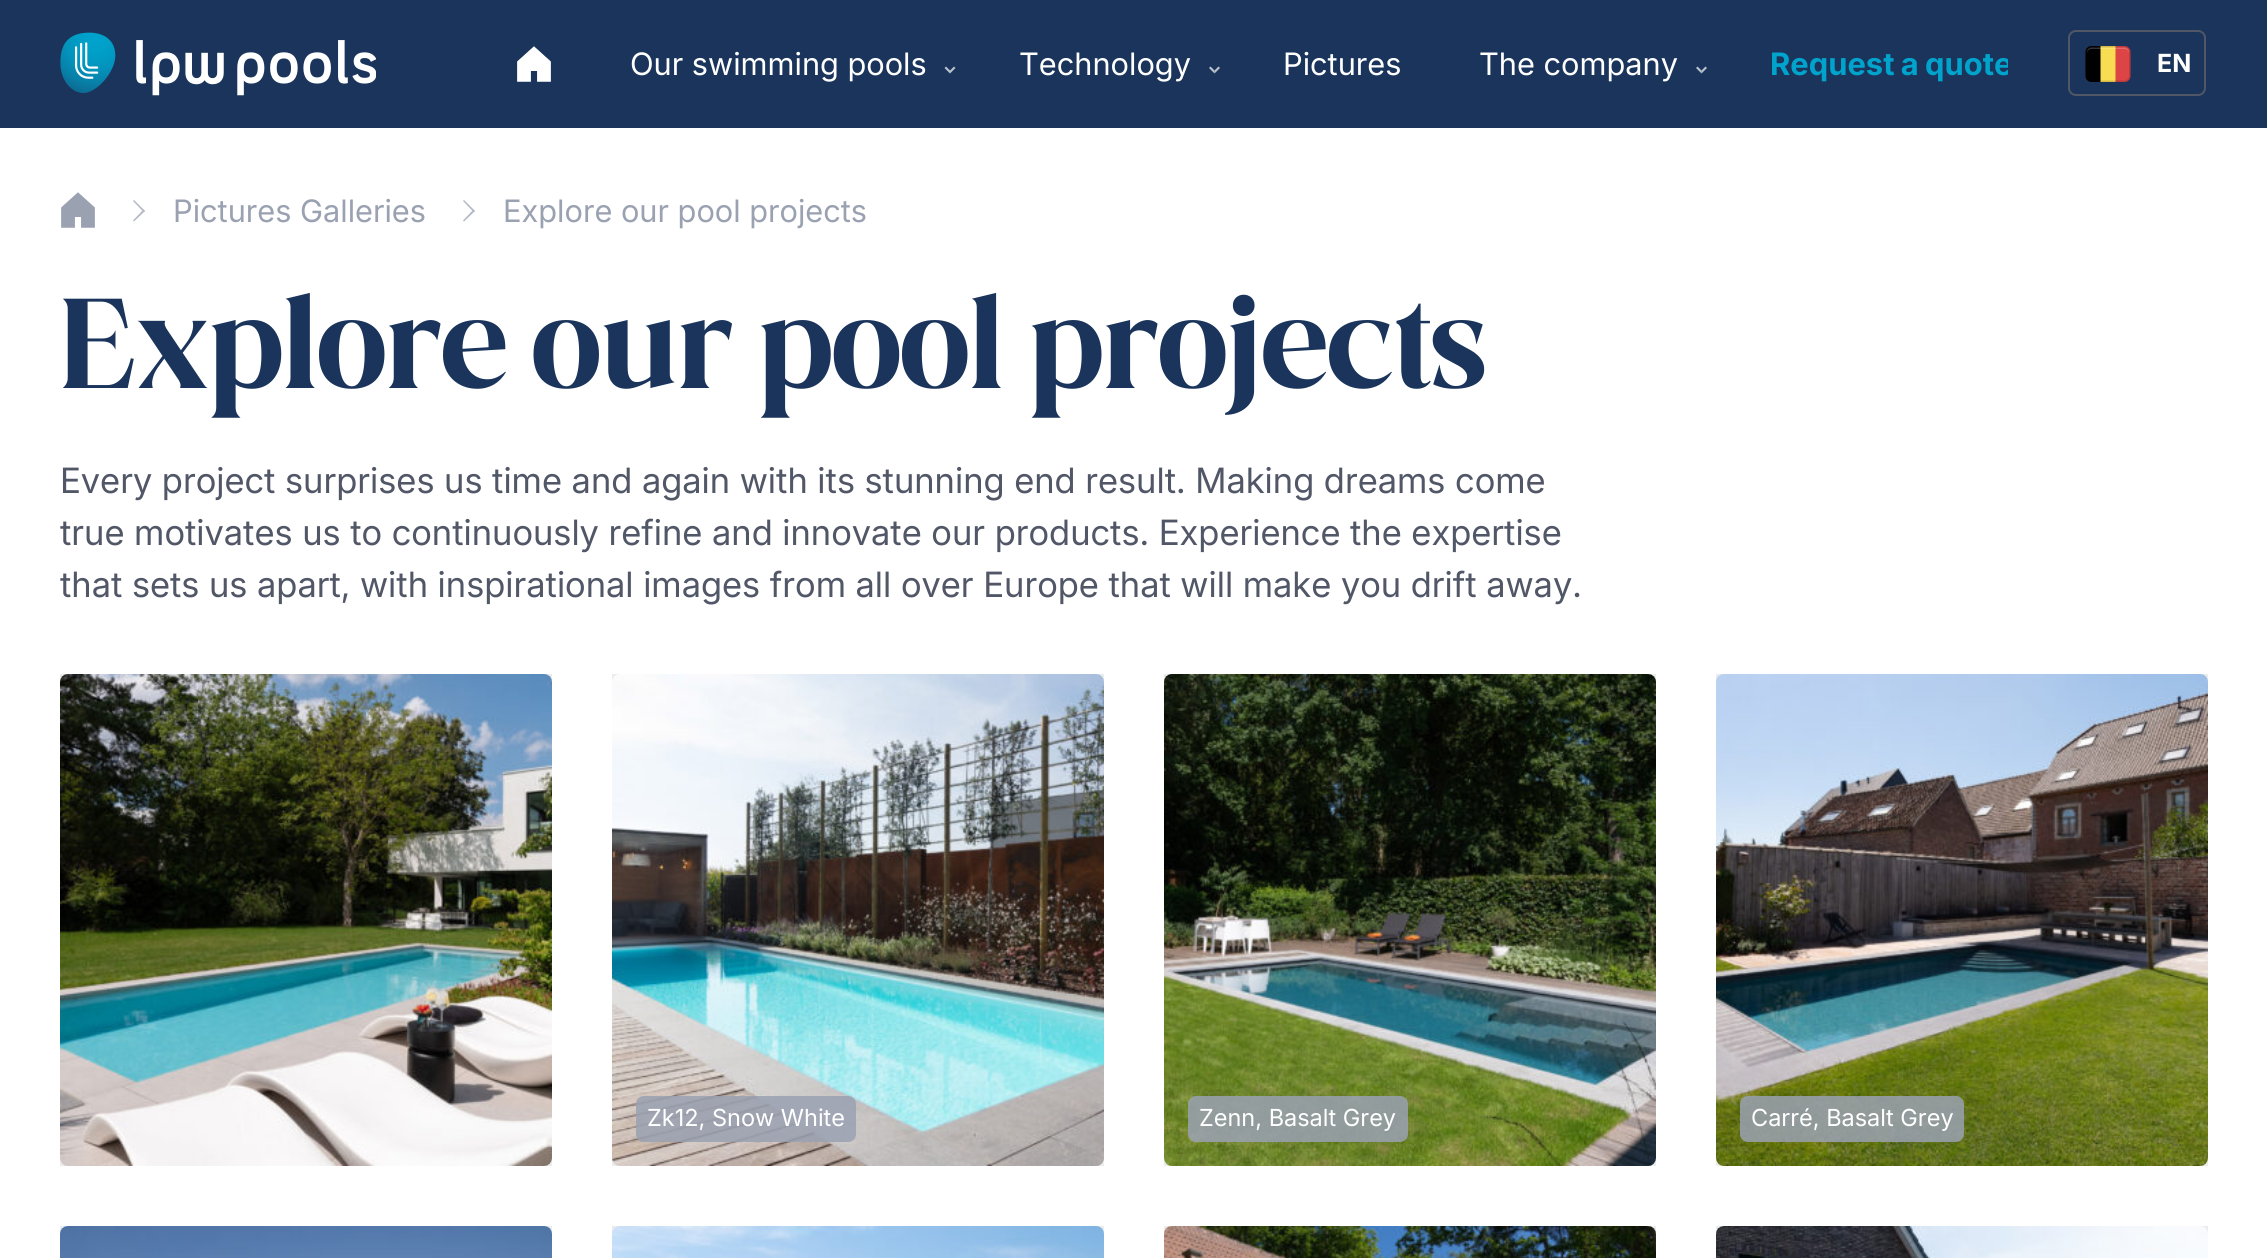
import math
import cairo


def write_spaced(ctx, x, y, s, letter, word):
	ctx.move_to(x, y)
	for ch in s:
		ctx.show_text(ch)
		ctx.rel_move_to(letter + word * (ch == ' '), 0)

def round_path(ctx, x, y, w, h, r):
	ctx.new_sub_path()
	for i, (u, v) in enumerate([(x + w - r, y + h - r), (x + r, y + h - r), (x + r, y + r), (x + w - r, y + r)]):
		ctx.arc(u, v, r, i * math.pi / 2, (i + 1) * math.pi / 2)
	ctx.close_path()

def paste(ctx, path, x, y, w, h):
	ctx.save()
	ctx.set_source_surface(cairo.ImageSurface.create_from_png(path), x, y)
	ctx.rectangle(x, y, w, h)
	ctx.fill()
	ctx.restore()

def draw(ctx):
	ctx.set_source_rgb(0.102, 0.204, 0.357)
	ctx.paint()
	paste(ctx, 'media/1.png', 60, 32, 316, 64)
	paste(ctx, 'media/2.png', 517, 46, 34, 36)
	ctx.select_font_face('Inter')
	ctx.set_font_size(30.9)
	ctx.set_source_rgb(1, 1, 1)
	ctx.move_to(630, 75)
	ctx.show_text('Our swimming pools')
	ctx.set_source_rgb(0.729, 0.761, 0.808)
	ctx.new_path()
	ctx.move_to(955.5, 68)
	ctx.line_to(950, 73.5)
	ctx.line_to(950, 70.5)
	ctx.line_to(954, 66.5)
	ctx.close_path()
	ctx.move_to(950, 73.5)
	ctx.line_to(944.5, 68)
	ctx.line_to(946, 66.5)
	ctx.line_to(950, 70.5)
	ctx.close_path()
	ctx.fill()
	ctx.set_source_rgb(1, 1, 1)
	ctx.move_to(1019, 75)
	ctx.show_text('Technology')
	ctx.set_source_rgb(0.729, 0.761, 0.808)
	ctx.new_path()
	ctx.move_to(1220, 68)
	ctx.line_to(1214.5, 73.5)
	ctx.line_to(1214.5, 70.5)
	ctx.line_to(1218.5, 66.5)
	ctx.close_path()
	ctx.fill()
	ctx.set_source_rgba(1, 1, 1, 0.7)
	ctx.new_path()
	ctx.move_to(1214.5, 73.5)
	ctx.line_to(1209, 68)
	ctx.line_to(1210.5, 66.5)
	ctx.line_to(1214.5, 70.5)
	ctx.close_path()
	ctx.fill()
	ctx.set_source_rgb(1, 1, 1)
	ctx.move_to(1283, 75)
	ctx.show_text('Pictures')
	ctx.move_to(1479, 75)
	ctx.show_text('The company')
	ctx.set_source_rgb(0.729, 0.761, 0.808)
	ctx.new_path()
	ctx.move_to(1707, 68)
	ctx.line_to(1701.5, 73.5)
	ctx.line_to(1701.5, 70.5)
	ctx.line_to(1705.5, 66.5)
	ctx.close_path()
	ctx.fill()
	ctx.set_source_rgba(1, 1, 1, 0.7)
	ctx.new_path()
	ctx.move_to(1701.5, 73.5)
	ctx.line_to(1696, 68)
	ctx.line_to(1697.5, 66.5)
	ctx.line_to(1701.5, 70.5)
	ctx.close_path()
	ctx.fill()
	ctx.save()
	ctx.rectangle(440, 0, 1568, 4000)
	ctx.clip()
	ctx.select_font_face('Inter', cairo.FONT_SLANT_NORMAL, cairo.FONT_WEIGHT_BOLD)
	ctx.set_source_rgb(0, 0.639, 0.8)
	write_spaced(ctx, 1770, 75, 'Request a quote', 0, -1)
	ctx.restore()
	round_path(ctx, 2069, 31, 136, 64, 7)
	ctx.set_source_rgb(0.318, 0.341, 0.404)
	ctx.stroke()
	paste(ctx, 'media/3.png', 2085, 46, 46, 36)
	ctx.select_font_face('Inter', cairo.FONT_SLANT_NORMAL, cairo.FONT_WEIGHT_BOLD)
	ctx.set_font_size(25)
	ctx.set_source_rgb(1, 1, 1)
	ctx.move_to(2157, 72)
	ctx.show_text('EN')
	ctx.rectangle(0, 128, 2267, 1130)
	ctx.fill()
	paste(ctx, 'media/4.png', 61, 192, 34, 36)
	ctx.set_source_rgb(0.702, 0.725, 0.773)
	ctx.new_path()
	ctx.move_to(133, 201)
	ctx.line_to(134, 200)
	ctx.line_to(145, 211)
	ctx.line_to(143.5, 212)
	ctx.close_path()
	ctx.fill()
	ctx.new_path()
	ctx.move_to(133, 220.5)
	ctx.line_to(143.5, 209.5)
	ctx.line_to(145, 211)
	ctx.line_to(134, 221.5)
	ctx.close_path()
	ctx.fill()
	ctx.select_font_face('Inter')
	ctx.set_font_size(30.9)
	ctx.set_source_rgb(0.604, 0.631, 0.694)
	ctx.move_to(173, 222)
	ctx.show_text('Pictures Galleries')
	ctx.set_source_rgb(0.702, 0.725, 0.773)
	ctx.new_path()
	ctx.move_to(463, 201)
	ctx.line_to(464, 200)
	ctx.line_to(475, 211)
	ctx.line_to(473.5, 212)
	ctx.close_path()
	ctx.fill()
	ctx.new_path()
	ctx.move_to(463, 220.5)
	ctx.line_to(473.5, 209.5)
	ctx.line_to(475, 211)
	ctx.line_to(464, 221.5)
	ctx.close_path()
	ctx.fill()
	ctx.set_source_rgb(0.604, 0.631, 0.694)
	ctx.move_to(503, 222)
	ctx.show_text('Explore our pool projects')
	ctx.select_font_face('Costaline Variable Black')
	ctx.set_font_size(99.25)
	ctx.set_source_rgb(0.102, 0.204, 0.357)
	ctx.move_to(60, 388)
	ctx.show_text('Explore our pool projects')
	ctx.select_font_face('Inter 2')
	ctx.set_font_size(34.9)
	ctx.set_source_rgb(0.318, 0.341, 0.404)
	for x, y, s in [
		(60, 493, 'Every project surprises us time and again with its stunning end result. Making dreams come'),
		(60, 545, 'true motivates us to continuously refine and innovate our products. Experience the expertise'),
		(60, 597, 'that sets us apart, with inspirational images from all over Europe that will make you drift away.'),
	]:
		ctx.move_to(x, y)
		ctx.show_text(s)
	ctx.set_source_rgb(0.918, 0.922, 0.922)
	ctx.rectangle(60, 674, 492, 492)
	ctx.fill()
	paste(ctx, 'media/5.png', 60, 674, 492, 492)
	ctx.rectangle(612, 674, 492, 492)
	ctx.fill()
	paste(ctx, 'media/6.png', 612, 674, 492, 492)
	ctx.set_source_rgba(0.604, 0.631, 0.694, 0.85)
	round_path(ctx, 636, 1096, 220, 46, 8)
	ctx.fill()
	ctx.select_font_face('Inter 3')
	ctx.set_font_size(23.5)
	ctx.set_source_rgb(1, 1, 1)
	ctx.move_to(647, 1126)
	ctx.show_text('Zk12, Snow White')
	ctx.set_source_rgb(0.918, 0.922, 0.922)
	ctx.rectangle(1164, 674, 492, 492)
	ctx.fill()
	paste(ctx, 'media/7.png', 1164, 674, 492, 492)
	ctx.set_source_rgba(0.604, 0.631, 0.694, 0.85)
	round_path(ctx, 1188, 1096, 220, 46, 8)
	ctx.fill()
	ctx.set_source_rgb(1, 1, 1)
	ctx.move_to(1199, 1126)
	ctx.show_text('Zenn, Basalt Grey')
	ctx.set_source_rgb(0.918, 0.922, 0.922)
	ctx.rectangle(1716, 674, 492, 492)
	ctx.fill()
	paste(ctx, 'media/8.png', 1716, 674, 492, 492)
	ctx.set_source_rgba(0.604, 0.631, 0.694, 0.85)
	round_path(ctx, 1740, 1096, 224, 46, 8)
	ctx.fill()
	ctx.set_source_rgb(1, 1, 1)
	ctx.move_to(1751, 1126)
	ctx.show_text('Carré, Basalt Grey')
	ctx.set_source_rgb(0.918, 0.922, 0.922)
	ctx.rectangle(60, 1226, 492, 8)
	ctx.fill()
	paste(ctx, 'media/9.png', 60, 1226, 492, 32)
	ctx.rectangle(612, 1226, 492, 8)
	ctx.fill()
	paste(ctx, 'media/10.png', 612, 1226, 492, 32)
	ctx.rectangle(1164, 1226, 492, 8)
	ctx.fill()
	paste(ctx, 'media/11.png', 1164, 1226, 492, 32)
	ctx.rectangle(1716, 1226, 492, 8)
	ctx.fill()
	paste(ctx, 'media/12.png', 1716, 1226, 492, 32)


surface = cairo.ImageSurface(cairo.FORMAT_RGB24, 2267, 1258)
ctx = cairo.Context(surface)
options = cairo.FontOptions()
options.set_hint_metrics(cairo.HINT_METRICS_OFF)
options.set_hint_style(cairo.HINT_STYLE_NONE)
ctx.set_font_options(options)
ctx.set_miter_limit(4)
draw(ctx)
surface.write_to_png('image.png')
